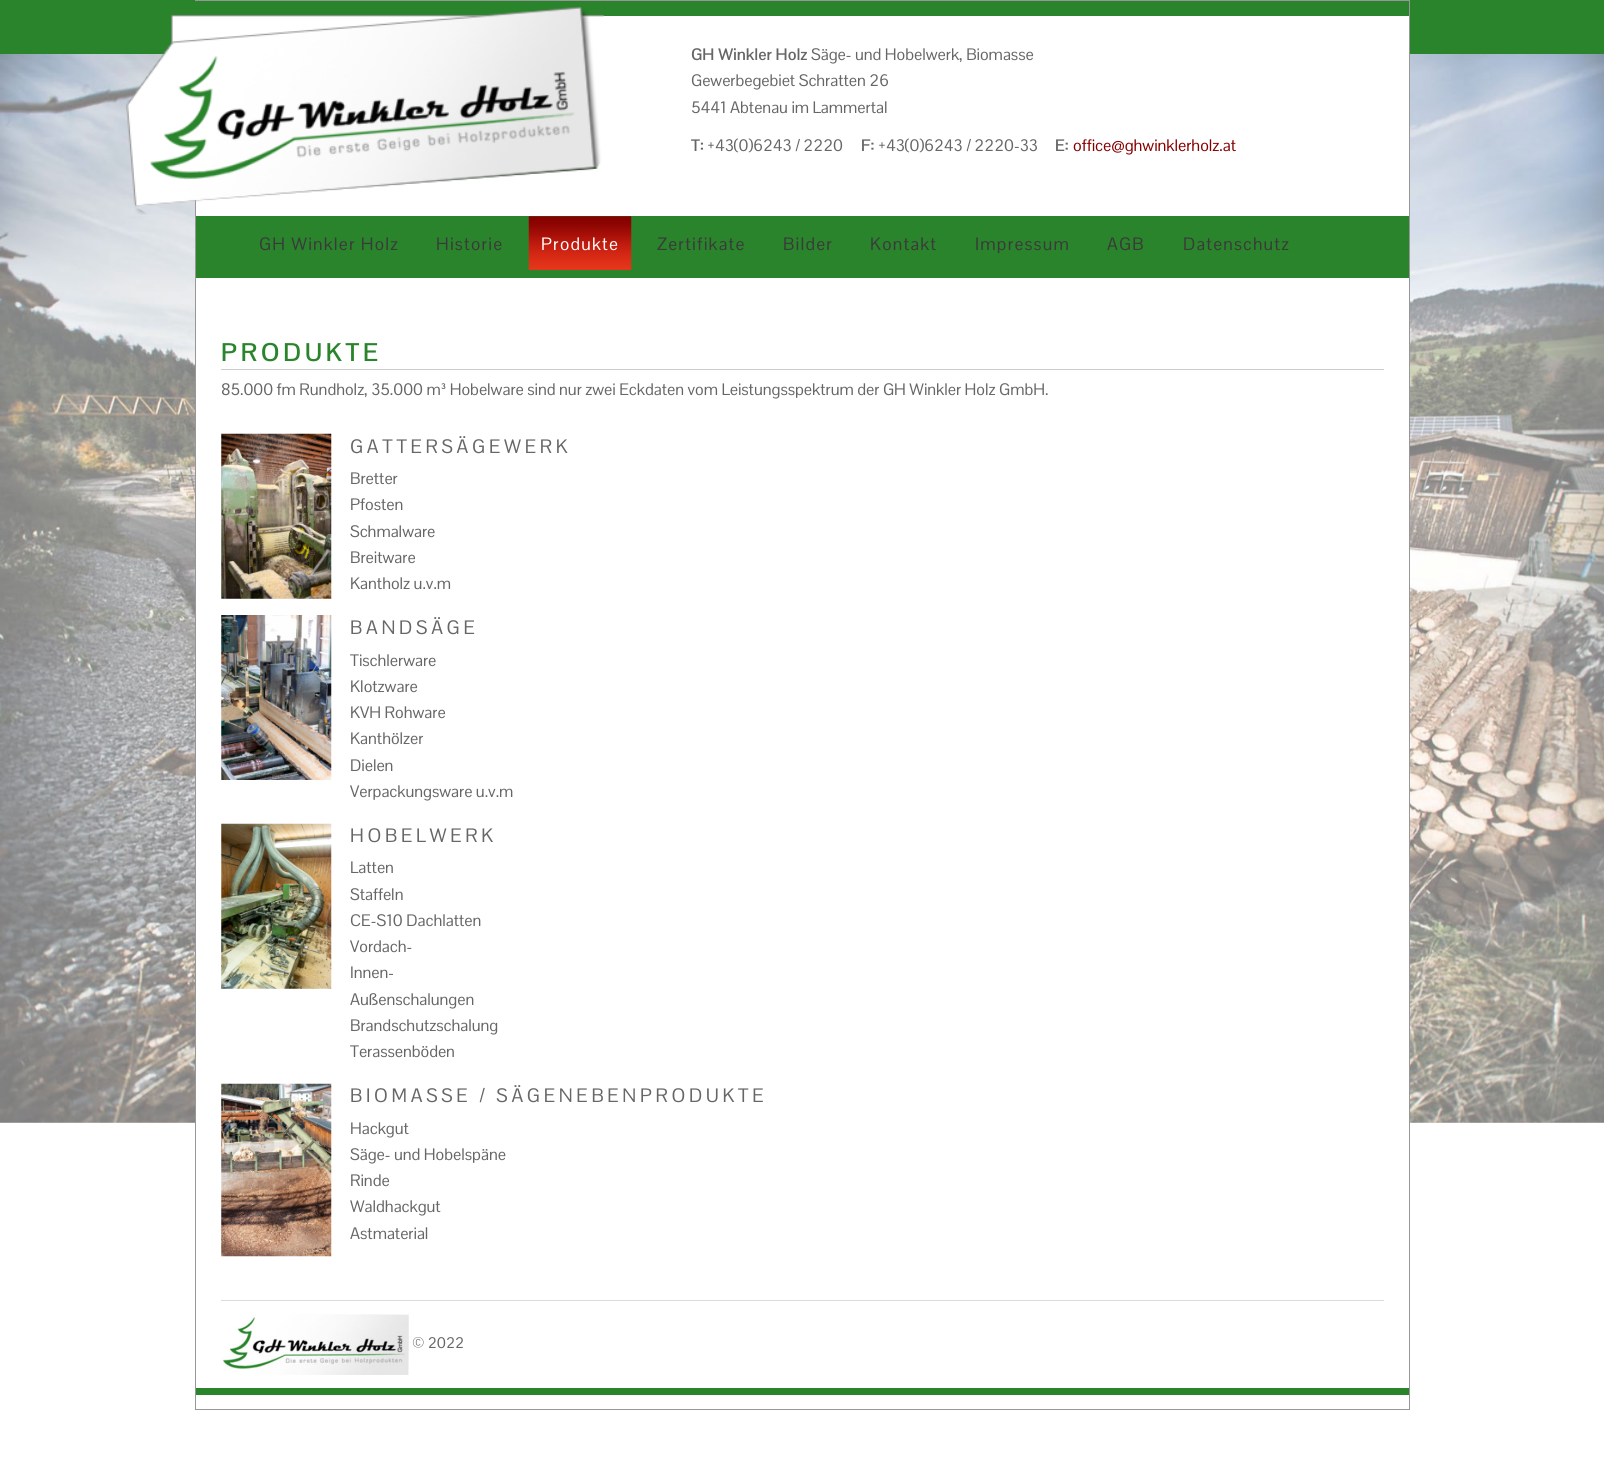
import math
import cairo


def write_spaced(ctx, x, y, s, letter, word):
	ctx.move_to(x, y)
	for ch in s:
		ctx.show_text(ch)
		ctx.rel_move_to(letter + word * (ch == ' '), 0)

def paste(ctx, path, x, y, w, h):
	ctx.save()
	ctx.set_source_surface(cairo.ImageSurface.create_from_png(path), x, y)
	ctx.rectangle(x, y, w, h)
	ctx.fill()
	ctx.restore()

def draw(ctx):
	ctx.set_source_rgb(1, 1, 1)
	ctx.paint()
	ctx.set_source_rgb(0.161, 0.518, 0.169)
	ctx.rectangle(0, 0, 1604, 54)
	ctx.fill()
	paste(ctx, 'media/1.png', 0, 54, 1604, 1069)
	ctx.set_source_rgb(1, 1, 1)
	ctx.rectangle(196, 16, 1213, 1107)
	ctx.fill()
	ctx.rectangle(195.5, 0.5, 1214, 1409)
	ctx.set_source_rgb(0.592, 0.592, 0.592)
	ctx.set_line_width(1)
	ctx.stroke()
	ctx.set_source_rgb(0.161, 0.518, 0.169)
	ctx.rectangle(196, 216, 1213, 62)
	ctx.fill()
	paste(ctx, 'media/2.png', 126, 1, 478, 214)
	ctx.select_font_face('Pontano Sans', cairo.FONT_SLANT_NORMAL, cairo.FONT_WEIGHT_BOLD)
	ctx.set_font_size(16.25)
	ctx.set_source_rgb(0.4, 0.4, 0.4)
	ctx.move_to(691, 60)
	ctx.show_text('GH Winkler Holz')
	ctx.select_font_face('Pontano Sans')
	for x, y, s in [
		(811, 60, 'Säge- und Hobelwerk, Biomasse'),
		(691, 86, 'Gewerbegebiet Schratten 26'),
		(691, 113, '5441 Abtenau im Lammertal'),
	]:
		ctx.move_to(x, y)
		ctx.show_text(s)
	ctx.select_font_face('Pontano Sans', cairo.FONT_SLANT_NORMAL, cairo.FONT_WEIGHT_BOLD)
	ctx.move_to(691, 151)
	ctx.show_text('T:')
	ctx.select_font_face('Pontano Sans')
	ctx.move_to(707, 151)
	ctx.show_text('+43(0)6243 / 2220')
	ctx.select_font_face('Pontano Sans', cairo.FONT_SLANT_NORMAL, cairo.FONT_WEIGHT_BOLD)
	ctx.move_to(861, 151)
	ctx.show_text('F:')
	ctx.select_font_face('Pontano Sans')
	ctx.move_to(878, 151)
	ctx.show_text('+43(0)6243 / 2220-33')
	ctx.select_font_face('Pontano Sans', cairo.FONT_SLANT_NORMAL, cairo.FONT_WEIGHT_BOLD)
	ctx.move_to(1055, 151)
	ctx.show_text('E:')
	ctx.select_font_face('Pontano Sans')
	ctx.set_source_rgb(0.518, 0, 0)
	ctx.move_to(1073, 151)
	ctx.show_text('office@ghwinklerholz.at')
	ctx.set_font_size(17.5)
	ctx.set_source_rgb(0.227, 0.227, 0.227)
	write_spaced(ctx, 259, 250, 'GH Winkler Holz', 1.25, 0)
	write_spaced(ctx, 436, 250, 'Historie', 1.25, 0)
	paste(ctx, 'media/3.png', 528, 216, 104, 54)
	ctx.set_source_rgb(1, 1, 1)
	write_spaced(ctx, 541, 250, 'Produkte', 1.25, 0)
	ctx.set_source_rgb(0.227, 0.227, 0.227)
	for x, y, s in [
		(657, 250, 'Zertifikate'),
		(783, 250, 'Bilder'),
		(870, 250, 'Kontakt'),
		(975, 250, 'Impressum'),
		(1107, 250, 'AGB'),
		(1183, 250, 'Datenschutz'),
	]:
		write_spaced(ctx, x, y, s, 1.25, 0)
	ctx.set_source_rgb(0.8, 0.8, 0.8)
	ctx.rectangle(221, 369, 1163, 1)
	ctx.fill()
	ctx.select_font_face('Pontano Sans', cairo.FONT_SLANT_NORMAL, cairo.FONT_WEIGHT_BOLD)
	ctx.set_font_size(25)
	ctx.set_source_rgb(0.161, 0.518, 0.169)
	write_spaced(ctx, 221, 361, 'PRODUKTE', 3.75, 0)
	ctx.select_font_face('Pontano Sans')
	ctx.set_font_size(16.25)
	ctx.set_source_rgb(0.4, 0.4, 0.4)
	ctx.move_to(221, 395)
	ctx.show_text('85.000 fm Rundholz, 35.000 m³ Hobelware sind nur zwei Eckdaten vom Leistungsspektrum der GH Winkler Holz GmbH.')
	paste(ctx, 'media/4.png', 221, 433, 111, 166)
	ctx.set_font_size(19)
	write_spaced(ctx, 350, 453, 'GATTERSÄGEWERK', 3.75, 0)
	ctx.set_font_size(16.25)
	for x, y, s in [
		(350, 484, 'Bretter'),
		(350, 510, 'Pfosten'),
		(350, 537, 'Schmalware'),
		(350, 563, 'Breitware'),
		(350, 589, 'Kantholz u.v.m'),
	]:
		ctx.move_to(x, y)
		ctx.show_text(s)
	paste(ctx, 'media/5.png', 221, 615, 111, 165)
	ctx.set_font_size(19)
	write_spaced(ctx, 350, 634, 'BANDSÄGE', 3.75, 0)
	ctx.set_font_size(16.25)
	for x, y, s in [
		(350, 666, 'Tischlerware'),
		(350, 692, 'Klotzware'),
		(350, 718, 'KVH Rohware'),
		(350, 744, 'Kanthölzer'),
		(350, 771, 'Dielen'),
		(350, 797, 'Verpackungsware u.v.m'),
	]:
		ctx.move_to(x, y)
		ctx.show_text(s)
	paste(ctx, 'media/6.png', 221, 823, 111, 166)
	ctx.set_font_size(19)
	write_spaced(ctx, 350, 842, 'HOBELWERK', 3.75, 0)
	ctx.set_font_size(16.25)
	for x, y, s in [
		(350, 873, 'Latten'),
		(350, 900, 'Staffeln'),
		(350, 926, 'CE-S10 Dachlatten'),
		(350, 952, 'Vordach-'),
		(350, 978, 'Innen-'),
		(350, 1005, 'Außenschalungen'),
		(350, 1031, 'Brandschutzschalung'),
		(350, 1057, 'Terassenböden'),
	]:
		ctx.move_to(x, y)
		ctx.show_text(s)
	paste(ctx, 'media/7.png', 221, 1083, 111, 174)
	ctx.set_font_size(19)
	write_spaced(ctx, 350, 1102, 'BIOMASSE / SÄGENEBENPRODUKTE', 3.75, 0)
	ctx.set_font_size(16.25)
	for x, y, s in [
		(350, 1134, 'Hackgut'),
		(350, 1160, 'Säge- und Hobelspäne'),
		(350, 1186, 'Rinde'),
		(350, 1212, 'Waldhackgut'),
		(350, 1239, 'Astmaterial'),
	]:
		ctx.move_to(x, y)
		ctx.show_text(s)
	ctx.set_source_rgb(0.161, 0.518, 0.169)
	ctx.rectangle(196, 1388, 1213, 7)
	ctx.fill()
	ctx.set_source_rgb(0.859, 0.859, 0.859)
	ctx.rectangle(221, 1300, 1163, 1)
	ctx.fill()
	paste(ctx, 'media/8.png', 221, 1314, 188, 61)
	ctx.set_font_size(15)
	ctx.set_source_rgb(0.4, 0.4, 0.4)
	ctx.move_to(412, 1348)
	ctx.show_text('© 2022')


surface = cairo.ImageSurface(cairo.FORMAT_RGB24, 1604, 1469)
ctx = cairo.Context(surface)
options = cairo.FontOptions()
options.set_hint_metrics(cairo.HINT_METRICS_OFF)
options.set_hint_style(cairo.HINT_STYLE_NONE)
ctx.set_font_options(options)
ctx.set_miter_limit(4)
draw(ctx)
surface.write_to_png('image.png')
